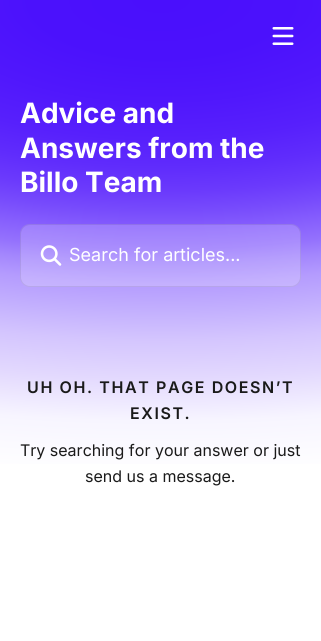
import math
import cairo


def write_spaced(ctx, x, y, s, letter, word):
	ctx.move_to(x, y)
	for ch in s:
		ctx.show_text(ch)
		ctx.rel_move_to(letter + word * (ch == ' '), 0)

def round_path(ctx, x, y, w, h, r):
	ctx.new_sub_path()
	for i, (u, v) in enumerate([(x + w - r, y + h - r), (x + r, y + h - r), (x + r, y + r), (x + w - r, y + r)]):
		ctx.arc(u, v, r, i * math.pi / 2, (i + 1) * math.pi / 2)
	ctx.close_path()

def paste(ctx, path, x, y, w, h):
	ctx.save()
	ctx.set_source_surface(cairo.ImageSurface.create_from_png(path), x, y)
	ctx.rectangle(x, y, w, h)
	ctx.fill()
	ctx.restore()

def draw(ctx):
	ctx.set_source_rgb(1, 1, 1)
	ctx.paint()
	gradient = cairo.RadialGradient(0, 0, 0, 0, 0, 1)
	gradient.set_matrix(cairo.Matrix(1 / 1070, 0, 0, 1 / 479, -1 * 161 / 1070, -1 * 0 / 479))
	gradient.add_color_stop_rgba(0, 0.29, 0.059, 0.988, 1)
	gradient.add_color_stop_rgba(0.12, 0.294, 0.067, 0.988, 1)
	gradient.add_color_stop_rgba(0.21, 0.314, 0.09, 0.988, 1)
	gradient.add_color_stop_rgba(0.29, 0.341, 0.125, 0.988, 1)
	gradient.add_color_stop_rgba(0.35, 0.376, 0.173, 0.988, 1)
	gradient.add_color_stop_rgba(0.4, 0.42, 0.227, 0.988, 1)
	gradient.add_color_stop_rgba(0.44, 0.467, 0.294, 0.988, 1)
	gradient.add_color_stop_rgba(0.48, 0.525, 0.369, 0.992, 1)
	gradient.add_color_stop_rgba(0.52, 0.58, 0.443, 0.992, 1)
	gradient.add_color_stop_rgba(0.55, 0.639, 0.525, 0.992, 1)
	gradient.add_color_stop_rgba(0.59, 0.706, 0.608, 0.996, 1)
	gradient.add_color_stop_rgba(0.65, 0.765, 0.69, 0.996, 1)
	gradient.add_color_stop_rgba(0.71, 0.831, 0.773, 0.996, 1)
	gradient.add_color_stop_rgba(0.79, 0.89, 0.851, 0.996, 1)
	gradient.add_color_stop_rgba(0.88, 0.969, 0.961, 1, 1)
	gradient.add_color_stop_rgba(1, 1, 1, 1, 1)
	ctx.set_source(gradient)
	ctx.rectangle(0, 0, 321, 464)
	ctx.fill()
	paste(ctx, 'media/1.png', 272, 27, 22, 18)
	ctx.select_font_face('Inter', cairo.FONT_SLANT_NORMAL, cairo.FONT_WEIGHT_BOLD)
	ctx.set_font_size(28)
	ctx.set_source_rgb(1, 1, 1)
	for x, y, s in [
		(20, 123, 'Advice and'),
		(20, 158, 'Answers from the'),
		(20, 192, 'Billo Team'),
	]:
		ctx.move_to(x, y)
		ctx.show_text(s)
	ctx.set_source_rgba(1, 1, 1, 0.2)
	round_path(ctx, 20, 224, 281, 63, 10)
	ctx.fill()
	round_path(ctx, 20.5, 224.5, 280, 62, 9.5)
	ctx.set_source_rgba(0, 0, 0, 0.08)
	ctx.set_line_width(1)
	ctx.stroke()
	paste(ctx, 'media/2.png', 40, 245, 22, 21)
	ctx.select_font_face('Inter')
	ctx.set_font_size(18)
	ctx.set_source_rgb(1, 1, 1)
	ctx.move_to(69, 261)
	ctx.show_text('Search for articles...')
	ctx.select_font_face('Inter SemiBold')
	ctx.set_font_size(16)
	ctx.set_source_rgb(0.102, 0.102, 0.102)
	write_spaced(ctx, 27, 393, 'UH OH. THAT PAGE DOESN’T', 1.6, 0)
	write_spaced(ctx, 130, 419, 'EXIST.', 1.6, 0)
	ctx.select_font_face('Inter')
	ctx.move_to(20, 456)
	ctx.show_text('Try searching for your answer or just')
	ctx.move_to(85, 482)
	ctx.show_text('send us a message.')


surface = cairo.ImageSurface(cairo.FORMAT_RGB24, 321, 641)
ctx = cairo.Context(surface)
options = cairo.FontOptions()
options.set_hint_metrics(cairo.HINT_METRICS_OFF)
options.set_hint_style(cairo.HINT_STYLE_NONE)
ctx.set_font_options(options)
ctx.set_miter_limit(4)
draw(ctx)
surface.write_to_png('image.png')
